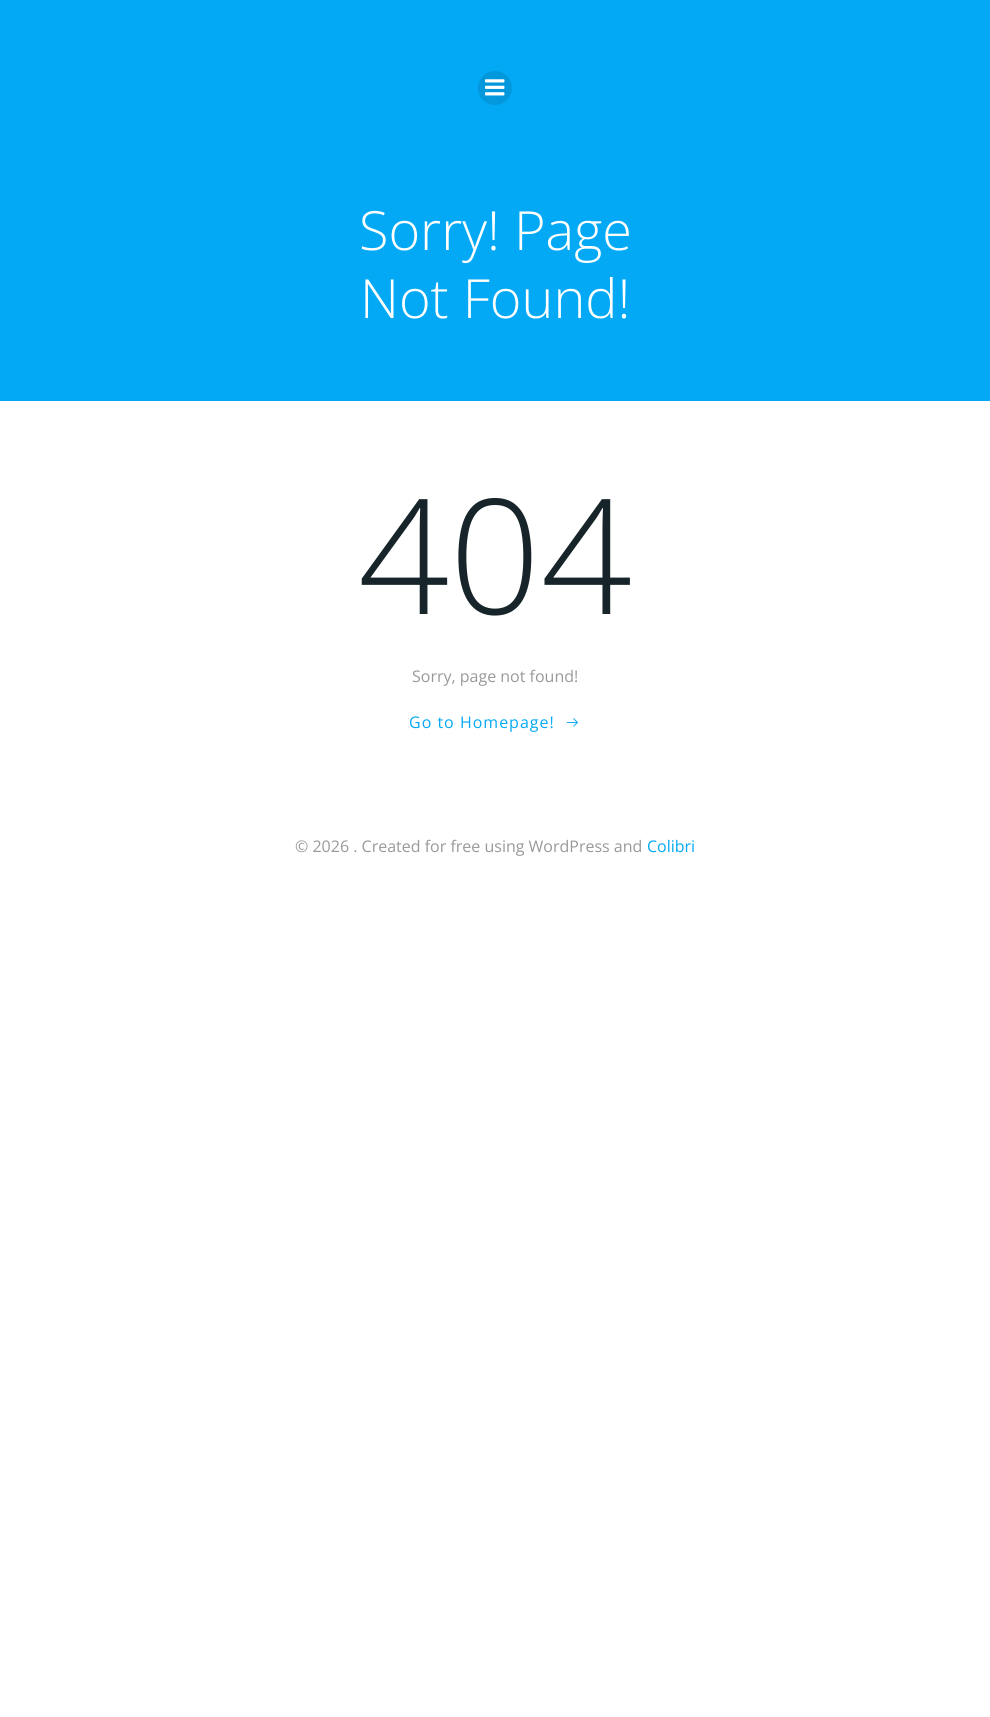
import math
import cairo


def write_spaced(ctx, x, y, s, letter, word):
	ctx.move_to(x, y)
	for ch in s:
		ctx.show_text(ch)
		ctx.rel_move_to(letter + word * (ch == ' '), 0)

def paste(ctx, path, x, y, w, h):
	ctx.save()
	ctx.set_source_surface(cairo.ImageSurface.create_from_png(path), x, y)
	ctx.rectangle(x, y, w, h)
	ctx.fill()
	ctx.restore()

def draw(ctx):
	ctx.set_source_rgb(1, 1, 1)
	ctx.paint()
	ctx.set_source_rgb(0.012, 0.663, 0.957)
	ctx.rectangle(0, 0, 990, 401)
	ctx.fill()
	ctx.set_source_rgb(0.012, 0.596, 0.863)
	ctx.arc(495, 88, 17, 0, 2 * math.pi)
	ctx.fill()
	paste(ctx, 'media/1.png', 485, 79, 20, 17)
	ctx.select_font_face('Open Sans Light')
	ctx.set_font_size(54)
	ctx.set_source_rgb(1, 1, 1)
	ctx.move_to(359, 250)
	ctx.show_text('Sorry! Page')
	ctx.move_to(360, 318)
	ctx.show_text('Not Found!')
	ctx.set_font_size(160)
	ctx.set_source_rgb(0.09, 0.145, 0.165)
	ctx.move_to(358, 614)
	ctx.show_text('404')
	ctx.select_font_face('Open Sans')
	ctx.set_font_size(16)
	ctx.set_source_rgb(0.6, 0.6, 0.6)
	ctx.move_to(412, 682)
	ctx.show_text('Sorry, page not found!')
	ctx.set_source_rgb(0.012, 0.663, 0.957)
	write_spaced(ctx, 409, 728, 'Go to Homepage!', 1, 0)
	paste(ctx, 'media/2.png', 566, 718, 12, 9)
	ctx.set_source_rgb(0.6, 0.6, 0.6)
	ctx.move_to(295, 852)
	ctx.show_text('© 2026 . Created for free using WordPress and')
	ctx.set_source_rgb(0.012, 0.663, 0.957)
	ctx.move_to(647, 852)
	ctx.show_text('Colibri')


surface = cairo.ImageSurface(cairo.FORMAT_RGB24, 990, 1717)
ctx = cairo.Context(surface)
options = cairo.FontOptions()
options.set_hint_metrics(cairo.HINT_METRICS_OFF)
options.set_hint_style(cairo.HINT_STYLE_NONE)
ctx.set_font_options(options)
ctx.set_miter_limit(4)
draw(ctx)
surface.write_to_png('image.png')
